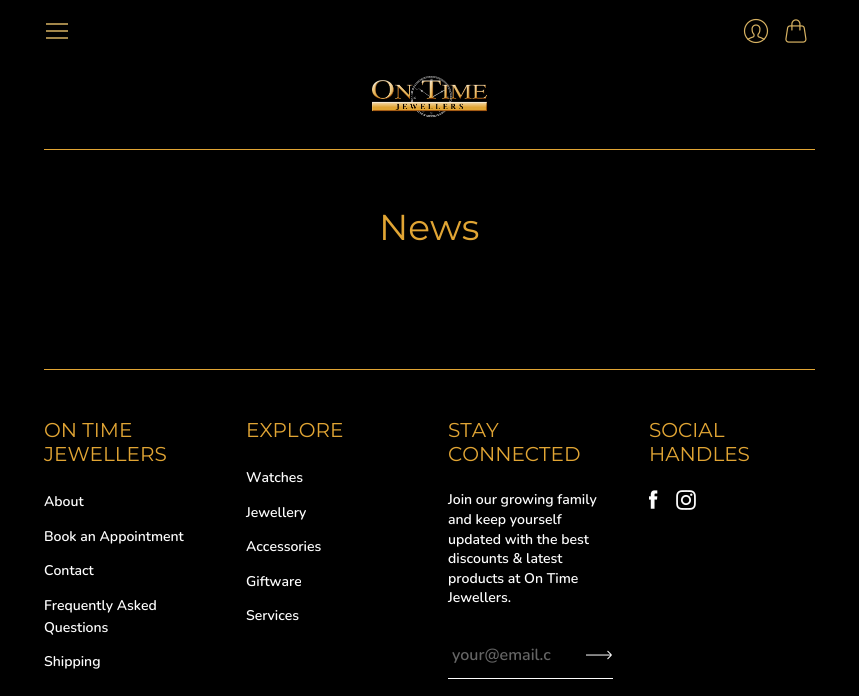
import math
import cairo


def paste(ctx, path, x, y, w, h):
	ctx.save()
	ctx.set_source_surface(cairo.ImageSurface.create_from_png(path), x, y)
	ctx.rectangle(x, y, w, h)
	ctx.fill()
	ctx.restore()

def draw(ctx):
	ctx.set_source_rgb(0, 0, 0)
	ctx.paint()
	ctx.set_source_rgb(0.635, 0.525, 0.29)
	ctx.rectangle(46, 23, 22, 2)
	ctx.rectangle(46, 30, 22, 2)
	ctx.rectangle(46, 37, 22, 2)
	ctx.fill()
	paste(ctx, 'media/1.png', 743, 18, 26, 26)
	paste(ctx, 'media/2.png', 785, 19, 22, 24)
	ctx.set_source_rgb(0.882, 0.647, 0.204)
	ctx.rectangle(44, 149, 771, 1)
	ctx.fill()
	paste(ctx, 'media/3.png', 372, 76, 115, 42)
	ctx.select_font_face('Montserrat')
	ctx.set_font_size(36)
	ctx.move_to(379, 240)
	ctx.show_text('News')
	ctx.rectangle(44, 369, 771, 1)
	ctx.fill()
	ctx.set_font_size(20)
	ctx.move_to(44, 437)
	ctx.show_text('ON TIME')
	ctx.move_to(44, 461)
	ctx.show_text('JEWELLERS')
	ctx.select_font_face('Nunito SemiBold')
	ctx.set_font_size(14)
	ctx.set_source_rgb(0.992, 0.992, 0.992)
	for x, y, s in [
		(44, 506, 'About'),
		(44, 541, 'Book an Appointment'),
		(44, 575, 'Contact'),
		(44, 610, 'Frequently Asked'),
		(44, 632, 'Questions'),
		(44, 666, 'Shipping'),
	]:
		ctx.move_to(x, y)
		ctx.show_text(s)
	ctx.select_font_face('Montserrat')
	ctx.set_font_size(20)
	ctx.set_source_rgb(0.882, 0.647, 0.204)
	ctx.move_to(246, 437)
	ctx.show_text('EXPLORE')
	ctx.select_font_face('Nunito SemiBold')
	ctx.set_font_size(14)
	ctx.set_source_rgb(0.992, 0.992, 0.992)
	for x, y, s in [
		(246, 482, 'Watches'),
		(246, 517, 'Jewellery'),
		(246, 551, 'Accessories'),
		(246, 586, 'Giftware'),
		(246, 620, 'Services'),
	]:
		ctx.move_to(x, y)
		ctx.show_text(s)
	ctx.select_font_face('Montserrat')
	ctx.set_font_size(20)
	ctx.set_source_rgb(0.882, 0.647, 0.204)
	ctx.move_to(448, 437)
	ctx.show_text('STAY')
	ctx.move_to(448, 461)
	ctx.show_text('CONNECTED')
	ctx.select_font_face('Nunito SemiBold')
	ctx.set_font_size(14)
	ctx.set_source_rgb(0.992, 0.992, 0.992)
	for x, y, s in [
		(448, 504, 'Join our growing family'),
		(448, 524, 'and keep yourself'),
		(448, 544, 'updated with the best'),
		(448, 563, 'discounts & latest'),
		(448, 583, 'products at On Time'),
		(448, 602, 'Jewellers.'),
	]:
		ctx.move_to(x, y)
		ctx.show_text(s)
	ctx.rectangle(448, 678, 165, 1)
	ctx.fill()
	ctx.set_font_size(16)
	ctx.set_source_rgb(0.396, 0.396, 0.396)
	ctx.move_to(452, 660)
	ctx.show_text('your@email.c')
	ctx.new_path()
	ctx.move_to(586, 655)
	ctx.line_to(611.5, 655)
	ctx.move_to(611.5, 655)
	ctx.line_to(607.5, 651)
	ctx.move_to(611.5, 655)
	ctx.line_to(607.5, 659)
	ctx.set_source_rgb(0.992, 0.992, 0.992)
	ctx.set_line_width(1)
	ctx.stroke()
	ctx.select_font_face('Montserrat')
	ctx.set_font_size(20)
	ctx.set_source_rgb(0.882, 0.647, 0.204)
	ctx.move_to(649, 437)
	ctx.show_text('SOCIAL')
	ctx.move_to(649, 461)
	ctx.show_text('HANDLES')
	paste(ctx, 'media/4.png', 649, 490, 9, 19)
	paste(ctx, 'media/5.png', 676, 490, 20, 20)


surface = cairo.ImageSurface(cairo.FORMAT_RGB24, 859, 696)
ctx = cairo.Context(surface)
options = cairo.FontOptions()
options.set_hint_metrics(cairo.HINT_METRICS_OFF)
options.set_hint_style(cairo.HINT_STYLE_NONE)
ctx.set_font_options(options)
ctx.set_miter_limit(4)
draw(ctx)
surface.write_to_png('image.png')
